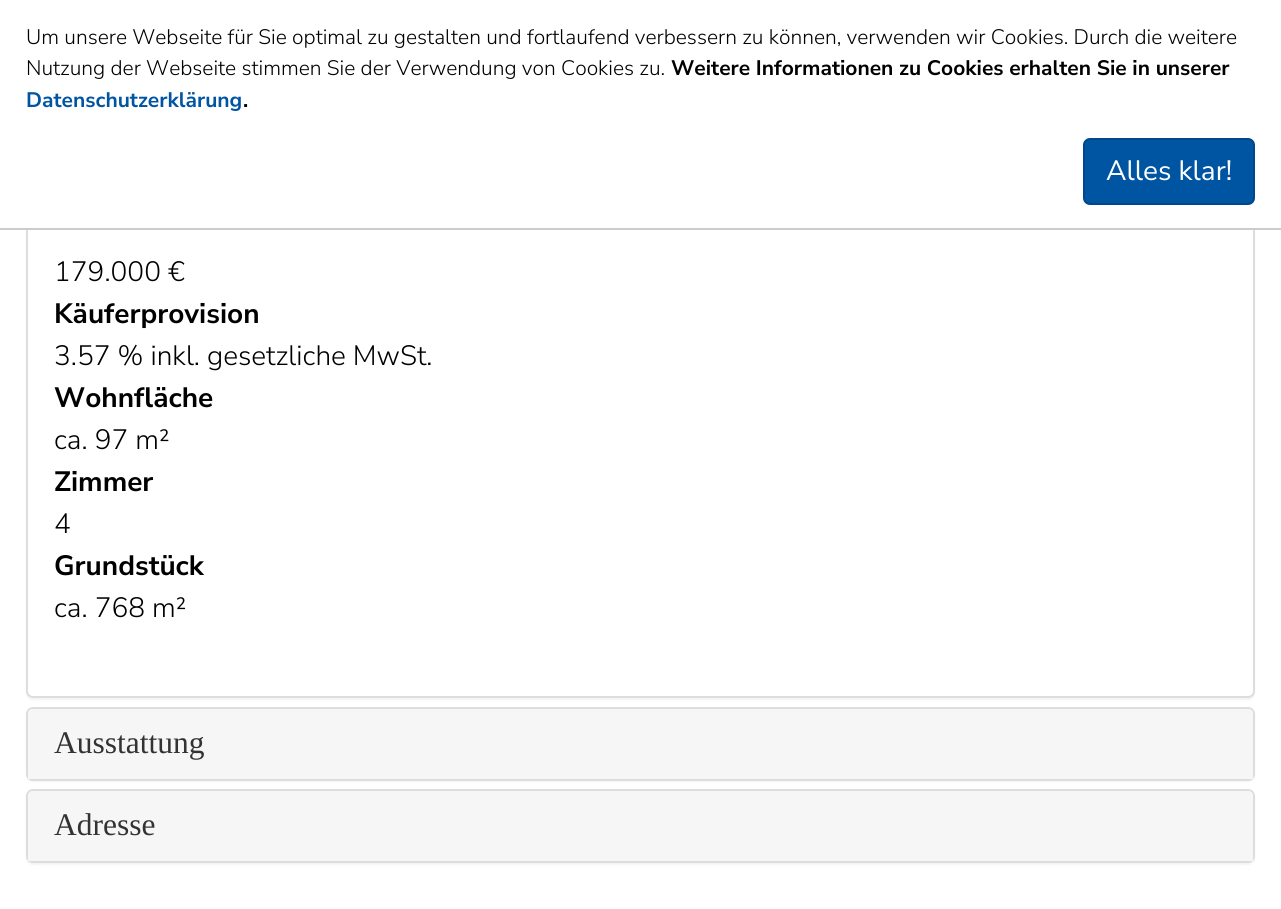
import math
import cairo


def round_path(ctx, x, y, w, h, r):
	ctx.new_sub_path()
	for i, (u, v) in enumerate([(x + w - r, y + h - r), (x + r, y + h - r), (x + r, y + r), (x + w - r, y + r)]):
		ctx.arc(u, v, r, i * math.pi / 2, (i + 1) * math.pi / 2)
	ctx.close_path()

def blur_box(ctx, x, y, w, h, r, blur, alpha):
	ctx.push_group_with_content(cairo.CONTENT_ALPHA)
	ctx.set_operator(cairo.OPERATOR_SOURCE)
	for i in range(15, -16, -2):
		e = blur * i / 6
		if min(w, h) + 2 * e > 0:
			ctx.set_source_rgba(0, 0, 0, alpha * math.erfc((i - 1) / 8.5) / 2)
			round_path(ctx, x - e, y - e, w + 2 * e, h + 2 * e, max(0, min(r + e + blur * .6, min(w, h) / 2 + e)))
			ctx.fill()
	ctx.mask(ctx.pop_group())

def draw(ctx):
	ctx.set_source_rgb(1, 1, 1)
	ctx.paint()
	ctx.set_source_rgb(0, 0, 0)
	blur_box(ctx, 26, 112, 1229, 588, 7, 1, 0.05)
	ctx.set_source_rgb(1, 1, 1)
	round_path(ctx, 27, 111, 1227, 586, 6)
	ctx.fill_preserve()
	ctx.set_source_rgb(0.867, 0.867, 0.867)
	ctx.stroke()
	ctx.set_source_rgb(1, 1, 1)
	ctx.rectangle(25, 110, 1231, 118)
	ctx.fill()
	ctx.set_source_rgb(0.8, 0.8, 0.8)
	ctx.rectangle(0, 228, 1281, 2)
	ctx.fill()
	ctx.select_font_face('Nunito Sans Light')
	ctx.set_font_size(21)
	ctx.set_source_rgb(0, 0, 0)
	ctx.move_to(26, 44)
	ctx.show_text('Um unsere Webseite für Sie optimal zu gestalten und fortlaufend verbessern zu können, verwenden wir Cookies. Durch die weitere')
	ctx.move_to(26, 75)
	ctx.show_text('Nutzung der Webseite stimmen Sie der Verwendung von Cookies zu.')
	ctx.select_font_face('Nunito Sans', cairo.FONT_SLANT_NORMAL, cairo.FONT_WEIGHT_BOLD)
	ctx.move_to(671, 75)
	ctx.show_text('Weitere Informationen zu Cookies erhalten Sie in unserer')
	ctx.set_source_rgb(0, 0.333, 0.639)
	ctx.move_to(26, 107)
	ctx.show_text('Datenschutzerklärung')
	ctx.set_source_rgb(0, 0, 0)
	ctx.move_to(243, 107)
	ctx.show_text('.')
	ctx.set_source_rgb(0, 0.333, 0.639)
	round_path(ctx, 1084, 139, 170, 65, 6)
	ctx.fill_preserve()
	ctx.set_source_rgb(0, 0.282, 0.541)
	ctx.stroke()
	ctx.select_font_face('Nunito Sans')
	ctx.set_font_size(28)
	ctx.set_source_rgb(1, 1, 1)
	ctx.move_to(1106, 180)
	ctx.show_text('Alles klar!')
	ctx.select_font_face('Nunito Sans Light')
	ctx.set_source_rgb(0, 0, 0)
	ctx.move_to(54, 281)
	ctx.show_text('179.000 €')
	ctx.select_font_face('Nunito Sans', cairo.FONT_SLANT_NORMAL, cairo.FONT_WEIGHT_BOLD)
	ctx.move_to(54, 323)
	ctx.show_text('Käuferprovision')
	ctx.select_font_face('Nunito Sans Light')
	ctx.move_to(54, 365)
	ctx.show_text('3.57 % inkl. gesetzliche MwSt.')
	ctx.select_font_face('Nunito Sans', cairo.FONT_SLANT_NORMAL, cairo.FONT_WEIGHT_BOLD)
	ctx.move_to(54, 407)
	ctx.show_text('Wohnfläche')
	ctx.select_font_face('Nunito Sans Light')
	ctx.move_to(54, 449)
	ctx.show_text('ca. 97 m²')
	ctx.select_font_face('Nunito Sans', cairo.FONT_SLANT_NORMAL, cairo.FONT_WEIGHT_BOLD)
	ctx.move_to(54, 491)
	ctx.show_text('Zimmer')
	ctx.select_font_face('Nunito Sans Light')
	ctx.move_to(54, 533)
	ctx.show_text('4')
	ctx.select_font_face('Nunito Sans', cairo.FONT_SLANT_NORMAL, cairo.FONT_WEIGHT_BOLD)
	ctx.move_to(54, 575)
	ctx.show_text('Grundstück')
	ctx.select_font_face('Nunito Sans Light')
	ctx.move_to(54, 617)
	ctx.show_text('ca. 768 m²')
	ctx.set_source_rgb(0, 0, 0)
	blur_box(ctx, 26, 709, 1229, 73, 7, 1, 0.05)
	round_path(ctx, 27, 708, 1227, 72, 6)
	ctx.set_source_rgb(0.867, 0.867, 0.867)
	ctx.stroke()
	ctx.set_source_rgb(0.961, 0.961, 0.961)
	ctx.new_path()
	ctx.move_to(33, 709)
	ctx.line_to(1248, 709)
	ctx.curve_to(1251, 709, 1253, 711, 1253, 714)
	ctx.line_to(1253, 779)
	ctx.line_to(28, 779)
	ctx.line_to(28, 714)
	ctx.curve_to(28, 711, 30, 709, 33, 709)
	ctx.close_path()
	ctx.fill()
	ctx.select_font_face('Liberation Serif')
	ctx.set_font_size(31.5)
	ctx.set_source_rgb(0.2, 0.2, 0.2)
	ctx.move_to(54, 753)
	ctx.show_text('Ausstattung')
	ctx.set_source_rgb(0, 0, 0)
	blur_box(ctx, 26, 791, 1229, 74, 7, 1, 0.05)
	round_path(ctx, 27, 790, 1227, 72, 6)
	ctx.set_source_rgb(0.867, 0.867, 0.867)
	ctx.stroke()
	ctx.set_source_rgb(0.961, 0.961, 0.961)
	ctx.new_path()
	ctx.move_to(33, 791)
	ctx.line_to(1248, 791)
	ctx.curve_to(1251, 791, 1253, 793, 1253, 796)
	ctx.line_to(1253, 861)
	ctx.line_to(28, 861)
	ctx.line_to(28, 796)
	ctx.curve_to(28, 793, 30, 791, 33, 791)
	ctx.close_path()
	ctx.fill()
	ctx.set_source_rgb(0.2, 0.2, 0.2)
	ctx.move_to(54, 835)
	ctx.show_text('Adresse')


surface = cairo.ImageSurface(cairo.FORMAT_RGB24, 1281, 909)
ctx = cairo.Context(surface)
options = cairo.FontOptions()
options.set_hint_metrics(cairo.HINT_METRICS_OFF)
options.set_hint_style(cairo.HINT_STYLE_NONE)
ctx.set_font_options(options)
ctx.set_miter_limit(4)
draw(ctx)
surface.write_to_png('image.png')
